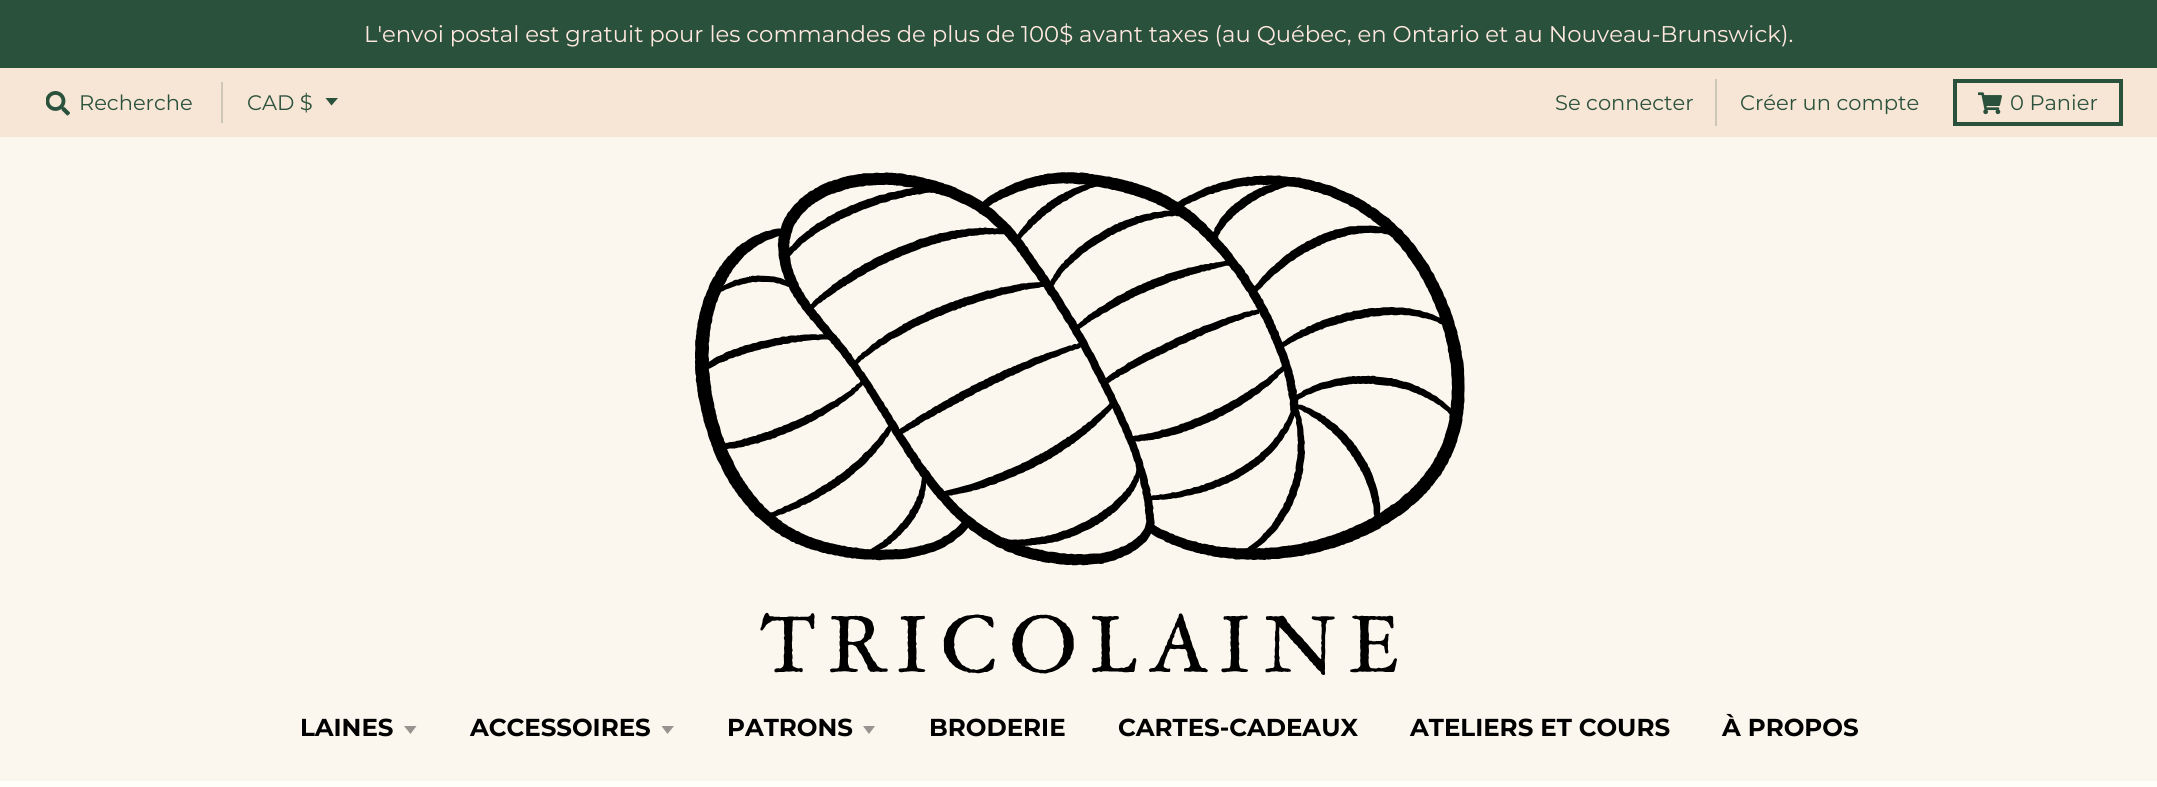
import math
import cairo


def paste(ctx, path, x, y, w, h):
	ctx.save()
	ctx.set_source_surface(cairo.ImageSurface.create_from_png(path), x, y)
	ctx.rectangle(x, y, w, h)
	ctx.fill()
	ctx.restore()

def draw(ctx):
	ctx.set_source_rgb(1, 1, 0.98)
	ctx.paint()
	ctx.set_source_rgb(0.165, 0.318, 0.231)
	ctx.rectangle(0, 0, 2157, 68)
	ctx.fill()
	ctx.select_font_face('Montserrat')
	ctx.set_font_size(22.75)
	ctx.set_source_rgb(1, 0.91, 0.878)
	ctx.move_to(364, 42)
	ctx.show_text('L\'envoi postal est gratuit pour les commandes de plus de 100$ avant taxes (au Québec, en Ontario et au Nouveau-Brunswick).')
	ctx.set_source_rgb(0.965, 0.898, 0.835)
	ctx.rectangle(0, 68, 2157, 69)
	ctx.fill()
	paste(ctx, 'media/1.png', 46, 91, 24, 25)
	ctx.set_font_size(21)
	ctx.set_source_rgb(0.165, 0.318, 0.231)
	ctx.move_to(79, 110)
	ctx.show_text('Recherche')
	ctx.set_source_rgb(0.804, 0.78, 0.714)
	ctx.rectangle(221, 82, 2, 41)
	ctx.fill()
	ctx.set_source_rgb(0.165, 0.318, 0.231)
	ctx.new_path()
	ctx.move_to(325.5, 98)
	ctx.line_to(331.5, 105.5)
	ctx.line_to(338, 98)
	ctx.close_path()
	ctx.fill()
	ctx.move_to(247, 110)
	ctx.show_text('CAD $')
	ctx.set_source_rgb(0.804, 0.78, 0.714)
	ctx.rectangle(1715, 79, 2, 47)
	ctx.fill()
	ctx.set_source_rgb(0.165, 0.318, 0.231)
	ctx.move_to(1555, 110)
	ctx.show_text('Se connecter')
	ctx.move_to(1740, 110)
	ctx.show_text('Créer un compte')
	ctx.rectangle(1955, 81, 166, 43)
	ctx.set_line_width(4)
	ctx.stroke()
	paste(ctx, 'media/2.png', 1978, 92, 24, 23)
	ctx.move_to(2010, 110)
	ctx.show_text('0 Panier')
	ctx.set_source_rgb(0.984, 0.961, 0.933)
	ctx.rectangle(0, 137, 2157, 644)
	ctx.fill()
	paste(ctx, 'media/3.png', 695, 172, 770, 503)
	ctx.select_font_face('Montserrat', cairo.FONT_SLANT_NORMAL, cairo.FONT_WEIGHT_BOLD)
	ctx.set_font_size(24.5)
	ctx.set_source_rgb(0, 0, 0)
	ctx.move_to(300, 736)
	ctx.show_text('LAINES')
	ctx.set_source_rgb(0.592, 0.576, 0.561)
	ctx.new_path()
	ctx.move_to(404, 726)
	ctx.line_to(410.5, 734)
	ctx.line_to(416.5, 726)
	ctx.close_path()
	ctx.fill()
	ctx.set_source_rgb(0, 0, 0)
	ctx.move_to(470, 736)
	ctx.show_text('ACCESSOIRES')
	ctx.set_source_rgb(0.592, 0.576, 0.561)
	ctx.new_path()
	ctx.move_to(661.5, 726)
	ctx.line_to(667.5, 734)
	ctx.line_to(674, 726)
	ctx.close_path()
	ctx.fill()
	ctx.set_source_rgb(0, 0, 0)
	ctx.move_to(727, 736)
	ctx.show_text('PATRONS')
	ctx.set_source_rgb(0.592, 0.576, 0.561)
	ctx.new_path()
	ctx.move_to(863, 726)
	ctx.line_to(869, 734)
	ctx.line_to(875, 726)
	ctx.close_path()
	ctx.fill()
	ctx.set_source_rgb(0, 0, 0)
	for x, y, s in [
		(929, 736, 'BRODERIE'),
		(1118, 736, 'CARTES-CADEAUX'),
		(1410, 736, 'ATELIERS ET COURS'),
		(1722, 736, 'À PROPOS'),
	]:
		ctx.move_to(x, y)
		ctx.show_text(s)


surface = cairo.ImageSurface(cairo.FORMAT_RGB24, 2157, 787)
ctx = cairo.Context(surface)
options = cairo.FontOptions()
options.set_hint_metrics(cairo.HINT_METRICS_OFF)
options.set_hint_style(cairo.HINT_STYLE_NONE)
ctx.set_font_options(options)
ctx.set_miter_limit(4)
draw(ctx)
surface.write_to_png('image.png')
